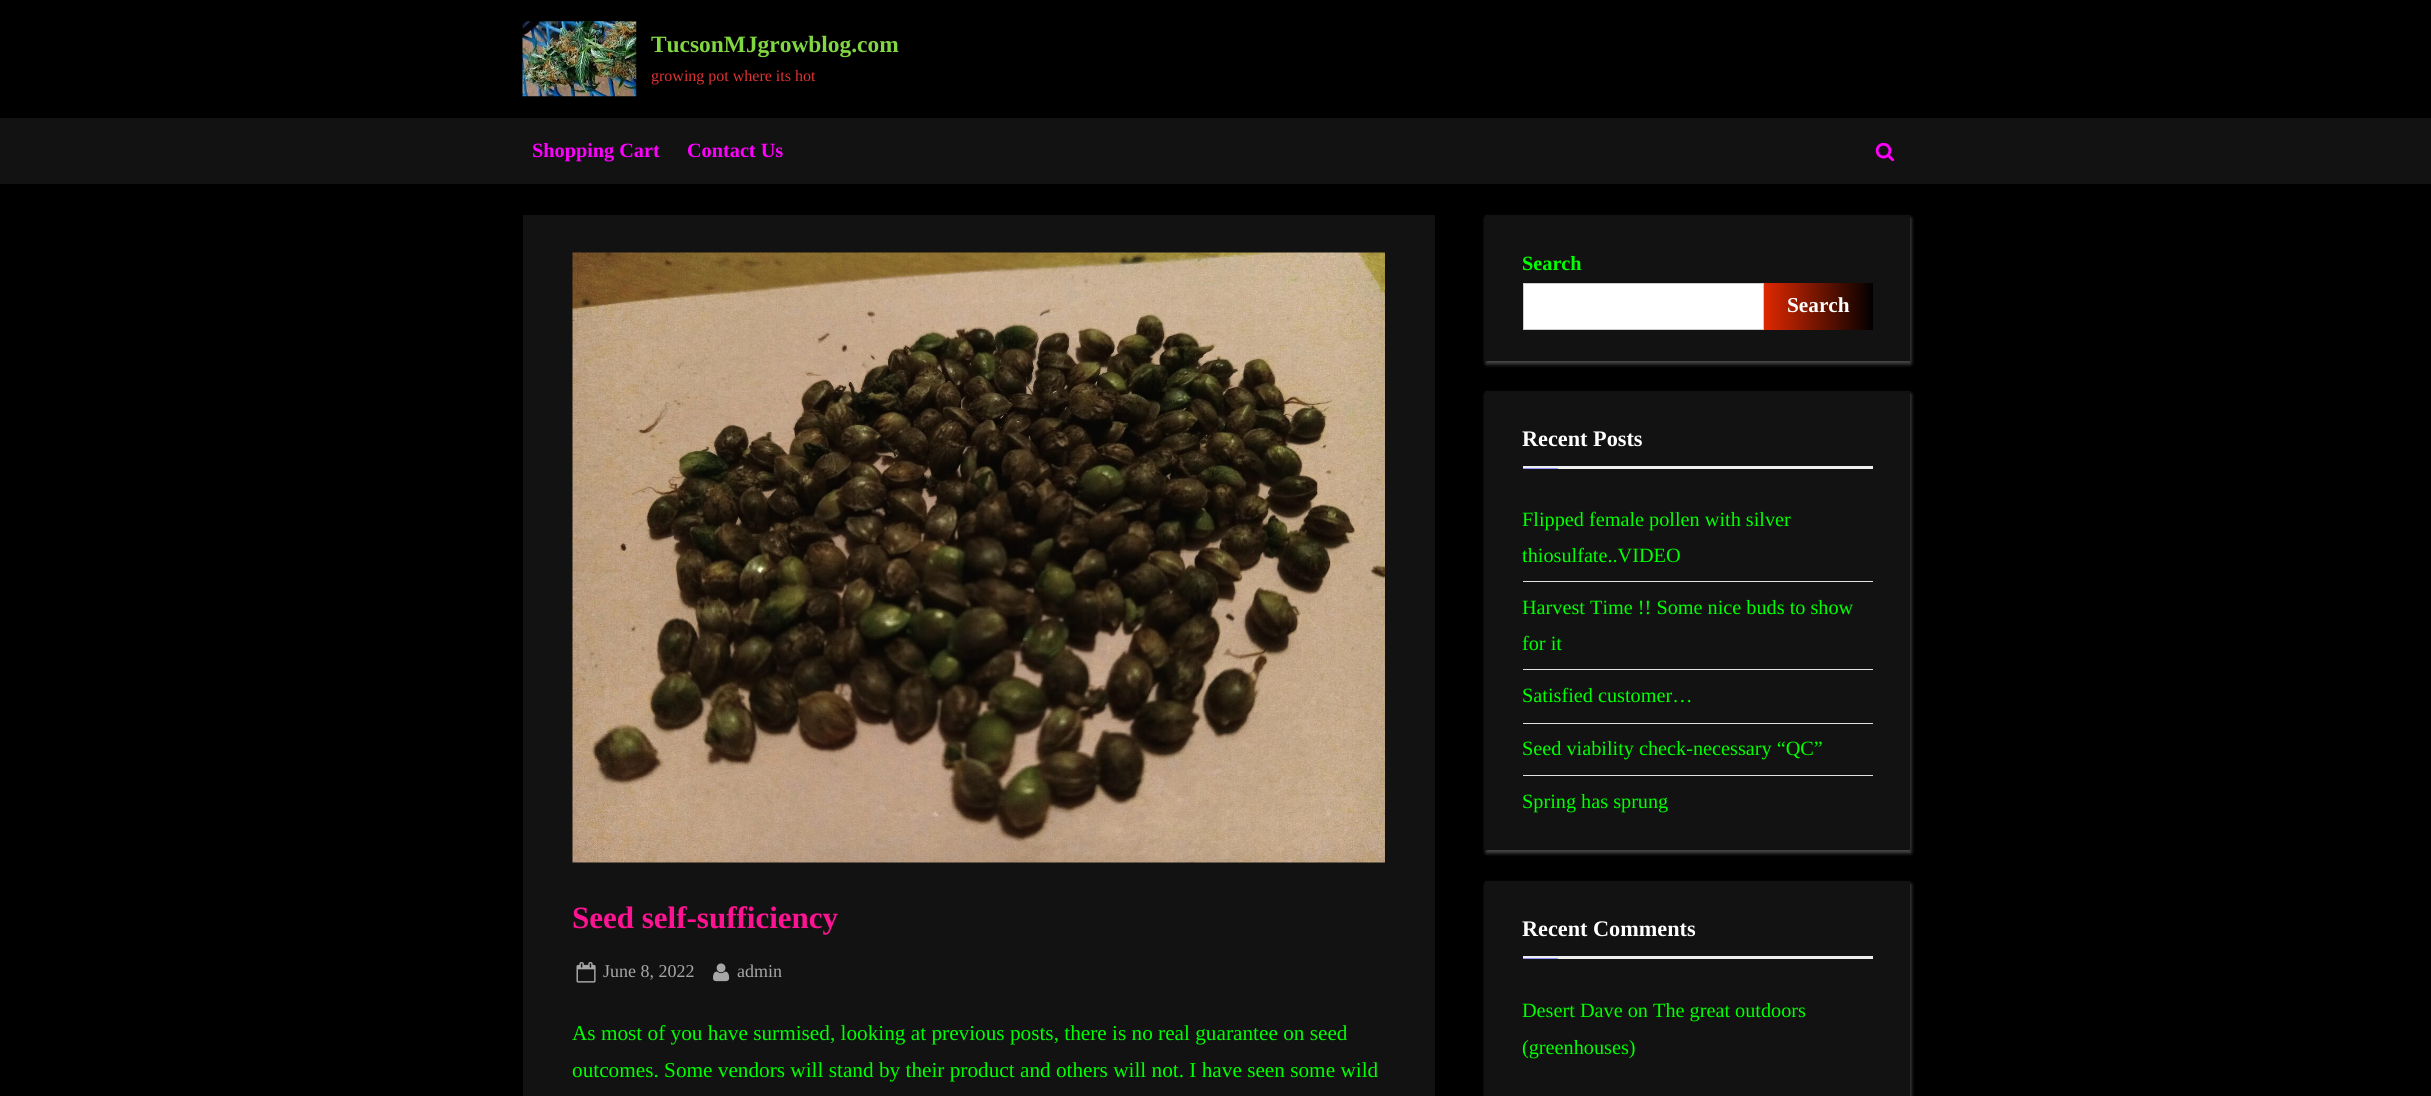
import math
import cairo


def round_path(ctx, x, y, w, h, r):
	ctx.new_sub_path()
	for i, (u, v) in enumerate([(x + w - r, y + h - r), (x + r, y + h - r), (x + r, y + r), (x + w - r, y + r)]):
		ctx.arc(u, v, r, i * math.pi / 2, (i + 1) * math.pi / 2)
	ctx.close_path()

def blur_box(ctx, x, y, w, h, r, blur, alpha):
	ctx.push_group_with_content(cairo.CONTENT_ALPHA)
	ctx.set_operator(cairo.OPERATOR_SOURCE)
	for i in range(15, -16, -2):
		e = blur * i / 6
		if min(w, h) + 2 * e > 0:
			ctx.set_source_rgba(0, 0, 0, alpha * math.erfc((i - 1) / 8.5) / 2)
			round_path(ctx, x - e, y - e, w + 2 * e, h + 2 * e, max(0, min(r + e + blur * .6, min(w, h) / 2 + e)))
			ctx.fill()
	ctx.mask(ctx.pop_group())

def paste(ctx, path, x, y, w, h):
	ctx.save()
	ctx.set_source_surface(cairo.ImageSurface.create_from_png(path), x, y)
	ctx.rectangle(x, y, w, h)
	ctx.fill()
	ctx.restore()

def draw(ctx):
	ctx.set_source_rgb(0, 0, 0)
	ctx.paint()
	paste(ctx, 'media/1.png', 522, 21, 115, 76)
	ctx.select_font_face('Liberation Serif', cairo.FONT_SLANT_NORMAL, cairo.FONT_WEIGHT_BOLD)
	ctx.set_font_size(23.4)
	ctx.set_source_rgb(0.506, 0.843, 0.259)
	ctx.move_to(651, 52)
	ctx.show_text('TucsonMJgrowblog.com')
	ctx.select_font_face('Liberation Serif')
	ctx.set_font_size(16)
	ctx.set_source_rgb(0.867, 0.2, 0.2)
	ctx.move_to(651, 81)
	ctx.show_text('growing pot where its hot')
	ctx.set_source_rgb(0.071, 0.071, 0.071)
	ctx.rectangle(0, 118, 2431, 66)
	ctx.fill()
	ctx.select_font_face('Liberation Serif', cairo.FONT_SLANT_NORMAL, cairo.FONT_WEIGHT_BOLD)
	ctx.set_font_size(20.25)
	ctx.set_source_rgb(1, 0, 1)
	ctx.move_to(532, 157)
	ctx.show_text('Shopping Cart')
	ctx.move_to(687, 157)
	ctx.show_text('Contact Us')
	paste(ctx, 'media/2.png', 1875, 142, 20, 19)
	ctx.set_source_rgb(0.071, 0.071, 0.071)
	ctx.rectangle(523, 215, 912, 881)
	ctx.fill()
	paste(ctx, 'media/3.png', 572, 252, 813, 611)
	ctx.set_font_size(31)
	ctx.set_source_rgb(1, 0.078, 0.576)
	ctx.move_to(572, 928)
	ctx.show_text('Seed self-sufficiency')
	paste(ctx, 'media/4.png', 576, 962, 20, 21)
	ctx.select_font_face('Liberation Serif')
	ctx.set_font_size(18)
	ctx.set_source_rgb(0.655, 0.655, 0.655)
	ctx.move_to(603, 977)
	ctx.show_text('June 8, 2022')
	paste(ctx, 'media/5.png', 713, 963, 17, 19)
	ctx.move_to(737, 977)
	ctx.show_text('admin')
	ctx.set_font_size(21.25)
	ctx.set_source_rgb(0, 1, 0)
	ctx.move_to(572, 1040)
	ctx.show_text('As most of you have surmised, looking at previous posts, there is no real guarantee on seed')
	ctx.move_to(572, 1077)
	ctx.show_text('outcomes. Some vendors will stand by their product and others will not. I have seen some wild')
	ctx.set_source_rgb(1, 1, 1)
	blur_box(ctx, 1486, 218, 425, 146, 0, 2, 0.3)
	ctx.set_source_rgb(0.071, 0.071, 0.071)
	ctx.rectangle(1485, 215, 425, 146)
	ctx.fill()
	ctx.select_font_face('Liberation Serif', cairo.FONT_SLANT_NORMAL, cairo.FONT_WEIGHT_BOLD)
	ctx.set_font_size(20.25)
	ctx.set_source_rgb(0, 1, 0)
	ctx.move_to(1522, 270)
	ctx.show_text('Search')
	ctx.set_source_rgb(1, 1, 1)
	ctx.rectangle(1523.5, 283.5, 240, 46)
	ctx.fill_preserve()
	ctx.set_source_rgb(0.8, 0.8, 0.8)
	ctx.set_line_width(1)
	ctx.stroke()
	gradient = cairo.LinearGradient(1553, 306, 1765, 306)
	gradient.add_color_stop_rgba(0, 0.867, 0.157, 0, 1)
	gradient.add_color_stop_rgba(0.51, 0, 0, 0, 1)
	gradient.add_color_stop_rgba(1, 0.867, 0.157, 0, 1)
	ctx.set_source(gradient)
	ctx.rectangle(1764, 283, 1, 47)
	ctx.fill()
	gradient = cairo.LinearGradient(1765, 306, 1978, 306)
	gradient.add_color_stop_rgba(0, 0.867, 0.157, 0, 1)
	gradient.add_color_stop_rgba(0.51, 0, 0, 0, 1)
	gradient.add_color_stop_rgba(1, 0.867, 0.157, 0, 1)
	ctx.set_source(gradient)
	ctx.rectangle(1765, 283, 108, 47)
	ctx.fill()
	ctx.set_font_size(21.25)
	ctx.set_source_rgb(1, 1, 1)
	ctx.move_to(1787, 312)
	ctx.show_text('Search')
	ctx.set_source_rgb(1, 1, 1)
	blur_box(ctx, 1486, 394, 425, 459, 0, 2, 0.3)
	ctx.set_source_rgb(0.071, 0.071, 0.071)
	ctx.rectangle(1485, 391, 425, 459)
	ctx.fill()
	ctx.set_source_rgb(0.933, 0.933, 0.933)
	ctx.rectangle(1523, 466, 350, 3)
	ctx.fill()
	ctx.set_font_size(22.25)
	ctx.set_source_rgb(1, 1, 1)
	ctx.move_to(1522, 446)
	ctx.show_text('Recent Posts')
	ctx.set_source_rgb(0.561, 0.58, 0.984)
	ctx.rectangle(1523, 468, 35, 1)
	ctx.fill()
	ctx.set_source_rgb(0.882, 0.882, 0.882)
	ctx.rectangle(1523, 581, 350, 1)
	ctx.fill()
	ctx.select_font_face('Liberation Serif')
	ctx.set_font_size(20.25)
	ctx.set_source_rgb(0, 1, 0)
	ctx.move_to(1522, 526)
	ctx.show_text('Flipped female pollen with silver')
	ctx.move_to(1522, 562)
	ctx.show_text('thiosulfate..VIDEO')
	ctx.set_source_rgb(0.882, 0.882, 0.882)
	ctx.rectangle(1523, 669, 350, 1)
	ctx.fill()
	ctx.set_source_rgb(0, 1, 0)
	ctx.move_to(1522, 614)
	ctx.show_text('Harvest Time !! Some nice buds to show')
	ctx.move_to(1522, 650)
	ctx.show_text('for it')
	ctx.set_source_rgb(0.882, 0.882, 0.882)
	ctx.rectangle(1523, 723, 350, 1)
	ctx.fill()
	ctx.set_source_rgb(0, 1, 0)
	ctx.move_to(1522, 702)
	ctx.show_text('Satisfied customer…')
	ctx.set_source_rgb(0.882, 0.882, 0.882)
	ctx.rectangle(1523, 775, 350, 1)
	ctx.fill()
	ctx.set_source_rgb(0, 1, 0)
	ctx.move_to(1522, 755)
	ctx.show_text('Seed viability check-necessary “QC”')
	ctx.move_to(1522, 808)
	ctx.show_text('Spring has sprung')
	ctx.set_source_rgb(1, 1, 1)
	blur_box(ctx, 1486, 884, 425, 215, 0, 2, 0.3)
	ctx.set_source_rgb(0.071, 0.071, 0.071)
	ctx.rectangle(1485, 881, 425, 215)
	ctx.fill()
	ctx.set_source_rgb(0.933, 0.933, 0.933)
	ctx.rectangle(1523, 956, 350, 3)
	ctx.fill()
	ctx.select_font_face('Liberation Serif', cairo.FONT_SLANT_NORMAL, cairo.FONT_WEIGHT_BOLD)
	ctx.set_font_size(22.25)
	ctx.set_source_rgb(1, 1, 1)
	ctx.move_to(1522, 936)
	ctx.show_text('Recent Comments')
	ctx.set_source_rgb(0.561, 0.58, 0.984)
	ctx.rectangle(1523, 958, 35, 1)
	ctx.fill()
	ctx.select_font_face('Liberation Serif')
	ctx.set_font_size(20.25)
	ctx.set_source_rgb(0, 1, 0)
	ctx.move_to(1522, 1017)
	ctx.show_text('Desert Dave on The great outdoors')
	ctx.move_to(1522, 1054)
	ctx.show_text('(greenhouses)')


surface = cairo.ImageSurface(cairo.FORMAT_RGB24, 2431, 1096)
ctx = cairo.Context(surface)
options = cairo.FontOptions()
options.set_hint_metrics(cairo.HINT_METRICS_OFF)
options.set_hint_style(cairo.HINT_STYLE_NONE)
ctx.set_font_options(options)
ctx.set_miter_limit(4)
draw(ctx)
surface.write_to_png('image.png')
